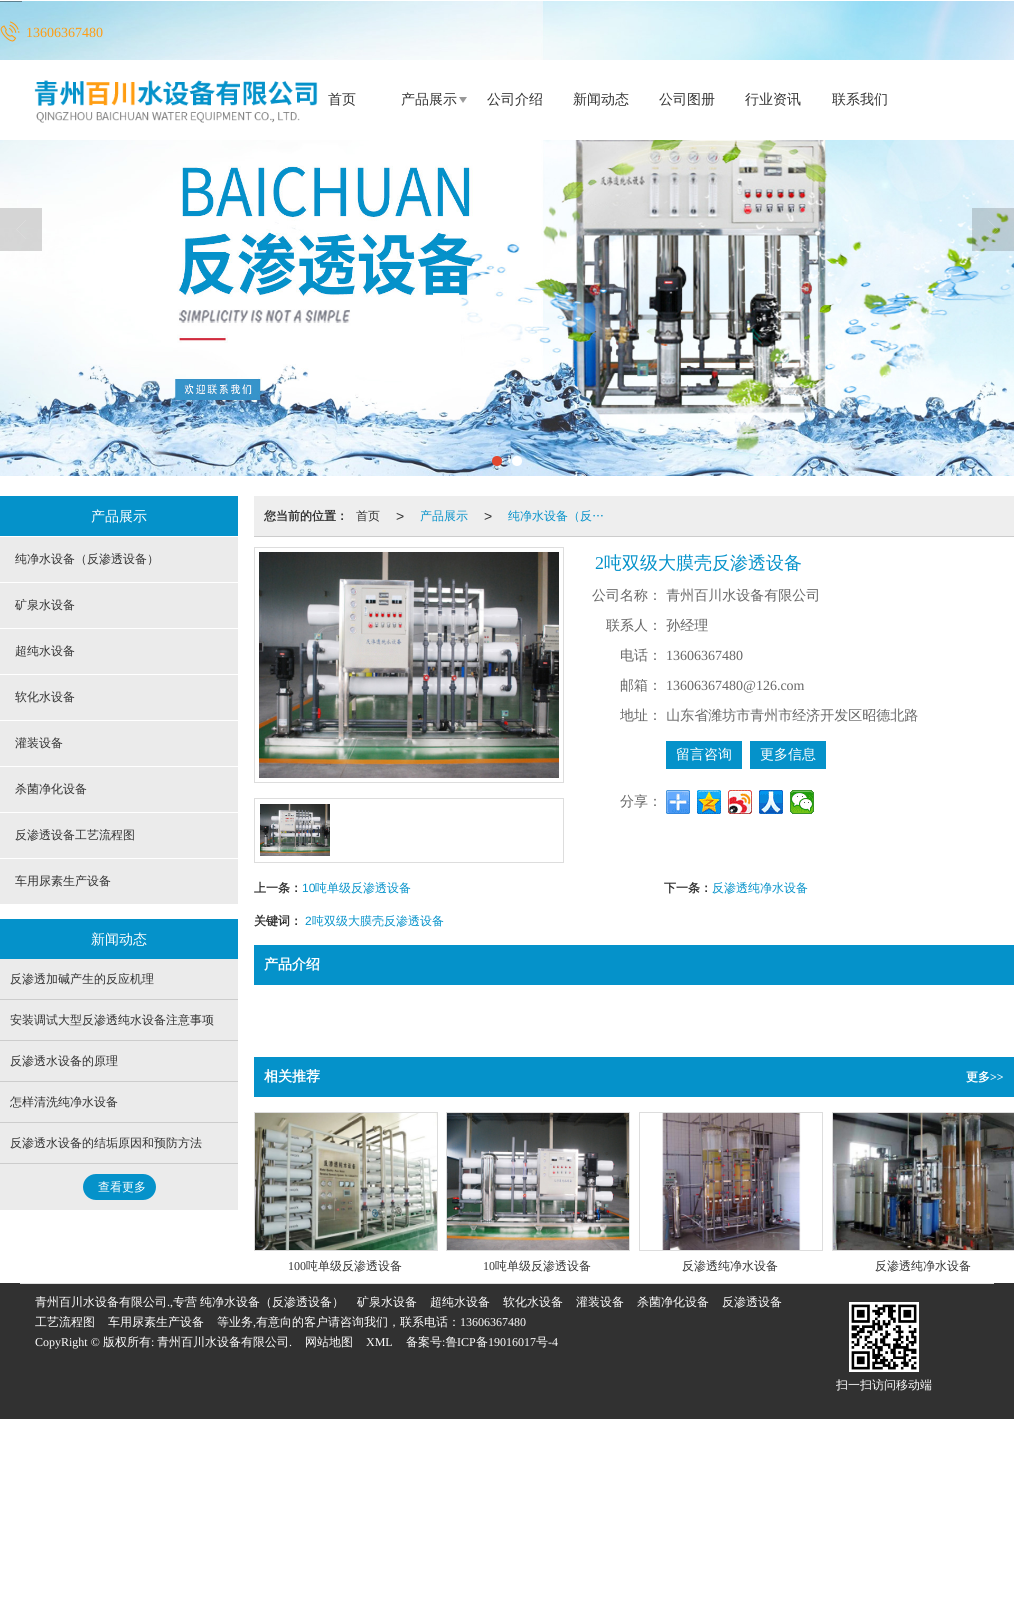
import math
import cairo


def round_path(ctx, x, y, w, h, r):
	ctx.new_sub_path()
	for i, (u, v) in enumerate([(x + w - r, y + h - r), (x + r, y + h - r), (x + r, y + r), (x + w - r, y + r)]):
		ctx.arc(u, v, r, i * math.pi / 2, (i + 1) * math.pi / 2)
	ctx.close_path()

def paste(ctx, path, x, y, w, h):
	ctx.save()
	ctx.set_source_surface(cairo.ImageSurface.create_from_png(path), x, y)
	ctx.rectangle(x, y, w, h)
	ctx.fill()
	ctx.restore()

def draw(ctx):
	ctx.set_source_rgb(1, 1, 1)
	ctx.paint()
	paste(ctx, 'media/1.png', 0, 1, 203, 203)
	paste(ctx, 'media/2.png', 203, 1, 203, 203)
	paste(ctx, 'media/3.png', 406, 1, 203, 203)
	paste(ctx, 'media/4.png', 609, 1, 203, 203)
	paste(ctx, 'media/5.png', 812, 1, 202, 203)
	paste(ctx, 'media/6.png', 0, 204, 203, 203)
	paste(ctx, 'media/7.png', 203, 204, 203, 203)
	paste(ctx, 'media/8.png', 406, 204, 203, 203)
	paste(ctx, 'media/9.png', 609, 204, 203, 203)
	paste(ctx, 'media/10.png', 812, 204, 202, 203)
	paste(ctx, 'media/11.png', 0, 407, 203, 69)
	paste(ctx, 'media/12.png', 203, 407, 203, 69)
	paste(ctx, 'media/13.png', 406, 407, 203, 69)
	paste(ctx, 'media/14.png', 609, 407, 203, 69)
	paste(ctx, 'media/15.png', 812, 407, 202, 69)
	ctx.set_source_rgba(0, 0, 0, 0.4)
	ctx.rectangle(0, 1, 22, 1)
	ctx.fill()
	ctx.set_source_rgba(0.224, 0.224, 0.224, 0.2)
	ctx.rectangle(0, 208, 42, 43)
	ctx.fill()
	paste(ctx, 'media/16.png', 16, 220, 10, 19)
	ctx.rectangle(972, 208, 42, 43)
	ctx.fill()
	paste(ctx, 'media/17.png', 988, 220, 10, 19)
	ctx.set_source_rgb(0.882, 0.278, 0.184)
	ctx.arc(497, 461, 5, 0, 2 * math.pi)
	ctx.fill()
	ctx.set_source_rgb(1, 1, 1)
	ctx.arc(517, 461, 5, 0, 2 * math.pi)
	ctx.fill()
	ctx.rectangle(0, 60, 1014, 80)
	ctx.fill()
	paste(ctx, 'media/18.png', 0, 21, 20, 21)
	ctx.select_font_face('Liberation Serif')
	ctx.set_font_size(14)
	ctx.set_source_rgb(1, 0.616, 0.071)
	ctx.move_to(26, 37)
	ctx.show_text('13606367480')
	paste(ctx, 'media/19.png', 34, 80, 284, 43)
	ctx.select_font_face('WenQuanYi Zen Hei Medium')
	ctx.set_source_rgb(0.2, 0.2, 0.2)
	ctx.move_to(328, 104)
	ctx.show_text('首页')
	ctx.move_to(401, 104)
	ctx.show_text('产品展示')
	ctx.set_source_rgb(0.6, 0.6, 0.6)
	ctx.new_path()
	ctx.move_to(459, 97)
	ctx.line_to(467, 97)
	ctx.line_to(463, 103)
	ctx.close_path()
	ctx.fill()
	ctx.set_source_rgb(0.2, 0.2, 0.2)
	for x, y, s in [
		(487, 104, '公司介绍'),
		(573, 104, '新闻动态'),
		(659, 104, '公司图册'),
		(745, 104, '行业资讯'),
		(832, 104, '联系我们'),
	]:
		ctx.move_to(x, y)
		ctx.show_text(s)
	ctx.set_source_rgb(0.02, 0.573, 0.792)
	ctx.rectangle(0, 496, 238, 40)
	ctx.fill()
	ctx.set_source_rgb(1, 1, 1)
	ctx.move_to(91, 521)
	ctx.show_text('产品展示')
	ctx.set_source_rgb(0.918, 0.918, 0.918)
	ctx.rectangle(0, 537, 238, 367)
	ctx.fill()
	ctx.set_font_size(12)
	ctx.set_source_rgb(0.2, 0.2, 0.2)
	ctx.move_to(15, 563)
	ctx.show_text('纯净水设备（反渗透设备）')
	ctx.set_source_rgb(1, 1, 1)
	ctx.rectangle(0, 582, 238, 1)
	ctx.fill()
	ctx.set_source_rgb(0.2, 0.2, 0.2)
	ctx.move_to(15, 609)
	ctx.show_text('矿泉水设备')
	ctx.set_source_rgb(1, 1, 1)
	ctx.rectangle(0, 628, 238, 1)
	ctx.fill()
	ctx.set_source_rgb(0.2, 0.2, 0.2)
	ctx.move_to(15, 655)
	ctx.show_text('超纯水设备')
	ctx.set_source_rgb(1, 1, 1)
	ctx.rectangle(0, 674, 238, 1)
	ctx.fill()
	ctx.set_source_rgb(0.2, 0.2, 0.2)
	ctx.move_to(15, 701)
	ctx.show_text('软化水设备')
	ctx.set_source_rgb(1, 1, 1)
	ctx.rectangle(0, 720, 238, 1)
	ctx.fill()
	ctx.set_source_rgb(0.2, 0.2, 0.2)
	ctx.move_to(15, 747)
	ctx.show_text('灌装设备')
	ctx.set_source_rgb(1, 1, 1)
	ctx.rectangle(0, 766, 238, 1)
	ctx.fill()
	ctx.set_source_rgb(0.2, 0.2, 0.2)
	ctx.move_to(15, 793)
	ctx.show_text('杀菌净化设备')
	ctx.set_source_rgb(1, 1, 1)
	ctx.rectangle(0, 812, 238, 1)
	ctx.fill()
	ctx.set_source_rgb(0.2, 0.2, 0.2)
	ctx.move_to(15, 839)
	ctx.show_text('反渗透设备工艺流程图')
	ctx.set_source_rgb(1, 1, 1)
	ctx.rectangle(0, 858, 238, 1)
	ctx.fill()
	ctx.set_source_rgb(0.2, 0.2, 0.2)
	ctx.move_to(15, 885)
	ctx.show_text('车用尿素生产设备')
	ctx.set_source_rgb(0.02, 0.573, 0.792)
	ctx.rectangle(0, 919, 238, 40)
	ctx.fill()
	ctx.set_font_size(14)
	ctx.set_source_rgb(1, 1, 1)
	ctx.move_to(91, 944)
	ctx.show_text('新闻动态')
	ctx.set_source_rgb(0.918, 0.918, 0.918)
	ctx.rectangle(0, 959, 238, 251)
	ctx.fill()
	ctx.set_source_rgb(0.8, 0.8, 0.8)
	ctx.rectangle(0, 999, 238, 1)
	ctx.fill()
	ctx.set_font_size(12)
	ctx.set_source_rgb(0.2, 0.2, 0.2)
	ctx.move_to(10, 983)
	ctx.show_text('反渗透加碱产生的反应机理')
	ctx.set_source_rgb(0.8, 0.8, 0.8)
	ctx.rectangle(0, 1040, 238, 1)
	ctx.fill()
	ctx.set_source_rgb(0.2, 0.2, 0.2)
	ctx.move_to(10, 1024)
	ctx.show_text('安装调试大型反渗透纯水设备注意事项')
	ctx.set_source_rgb(0.8, 0.8, 0.8)
	ctx.rectangle(0, 1081, 238, 1)
	ctx.fill()
	ctx.set_source_rgb(0.2, 0.2, 0.2)
	ctx.move_to(10, 1065)
	ctx.show_text('反渗透水设备的原理')
	ctx.set_source_rgb(0.8, 0.8, 0.8)
	ctx.rectangle(0, 1122, 238, 1)
	ctx.fill()
	ctx.set_source_rgb(0.2, 0.2, 0.2)
	ctx.move_to(10, 1106)
	ctx.show_text('怎样清洗纯净水设备')
	ctx.set_source_rgb(0.8, 0.8, 0.8)
	ctx.rectangle(0, 1163, 238, 1)
	ctx.fill()
	ctx.set_source_rgb(0.2, 0.2, 0.2)
	ctx.move_to(10, 1147)
	ctx.show_text('反渗透水设备的结垢原因和预防方法')
	ctx.set_source_rgb(0.02, 0.573, 0.792)
	round_path(ctx, 83, 1174, 73, 26, 13)
	ctx.fill()
	ctx.set_source_rgb(1, 1, 1)
	ctx.move_to(98, 1191)
	ctx.show_text('查看更多')
	ctx.set_source_rgb(0.933, 0.933, 0.933)
	ctx.rectangle(254, 496, 760, 40)
	ctx.fill()
	ctx.set_source_rgb(0.8, 0.8, 0.8)
	ctx.rectangle(254, 536, 760, 1)
	ctx.fill()
	ctx.select_font_face('WenQuanYi Zen Hei', cairo.FONT_SLANT_NORMAL, cairo.FONT_WEIGHT_BOLD)
	ctx.set_source_rgb(0.2, 0.2, 0.2)
	ctx.move_to(264, 520)
	ctx.show_text('您当前的位置：')
	ctx.select_font_face('WenQuanYi Zen Hei Medium')
	ctx.move_to(356, 520)
	ctx.show_text('首页')
	ctx.select_font_face('Liberation Sans')
	ctx.set_font_size(14)
	ctx.move_to(396, 521)
	ctx.show_text('>')
	ctx.select_font_face('WenQuanYi Zen Hei Medium')
	ctx.set_font_size(12)
	ctx.set_source_rgb(0.02, 0.573, 0.792)
	ctx.move_to(420, 520)
	ctx.show_text('产品展示')
	ctx.select_font_face('Liberation Sans')
	ctx.set_font_size(14)
	ctx.set_source_rgb(0.2, 0.2, 0.2)
	ctx.move_to(484, 521)
	ctx.show_text('>')
	ctx.select_font_face('WenQuanYi Zen Hei Medium')
	ctx.set_font_size(12)
	ctx.set_source_rgb(0.02, 0.573, 0.792)
	ctx.move_to(508, 520)
	ctx.show_text('纯净水设备（反…')
	ctx.rectangle(254.5, 547.5, 309, 235)
	ctx.set_source_rgb(0.867, 0.867, 0.867)
	ctx.set_line_width(1)
	ctx.stroke()
	paste(ctx, 'media/20.png', 259, 552, 300, 226)
	ctx.rectangle(254.5, 798.5, 309, 64)
	ctx.stroke()
	paste(ctx, 'media/21.png', 260, 804, 70, 52)
	ctx.select_font_face('Liberation Serif')
	ctx.set_font_size(18)
	ctx.set_source_rgb(0.02, 0.573, 0.792)
	ctx.move_to(595, 569)
	ctx.show_text('2')
	ctx.select_font_face('WenQuanYi Zen Hei Medium')
	ctx.move_to(604, 569)
	ctx.show_text('吨双级大膜壳反渗透设备')
	ctx.set_font_size(14)
	ctx.set_source_rgb(0.4, 0.4, 0.4)
	for x, y, s in [
		(592, 600, '公司名称： 青州百川水设备有限公司'),
		(606, 630, '联系人： 孙经理'),
		(620, 660, '电话：'),
	]:
		ctx.move_to(x, y)
		ctx.show_text(s)
	ctx.select_font_face('Liberation Serif')
	ctx.move_to(666, 660)
	ctx.show_text('13606367480')
	ctx.select_font_face('WenQuanYi Zen Hei Medium')
	ctx.move_to(620, 690)
	ctx.show_text('邮箱：')
	ctx.select_font_face('Liberation Serif')
	ctx.move_to(666, 690)
	ctx.show_text('13606367480@126.com')
	ctx.select_font_face('WenQuanYi Zen Hei Medium')
	ctx.move_to(620, 720)
	ctx.show_text('地址： 山东省潍坊市青州市经济开发区昭德北路')
	ctx.set_source_rgb(0.02, 0.573, 0.792)
	ctx.rectangle(666, 741, 76, 28)
	ctx.fill()
	ctx.set_source_rgb(1, 1, 1)
	ctx.move_to(676, 759)
	ctx.show_text('留言咨询')
	ctx.set_source_rgb(0.02, 0.573, 0.792)
	ctx.rectangle(750, 741, 76, 28)
	ctx.fill()
	ctx.set_source_rgb(1, 1, 1)
	ctx.move_to(760, 759)
	ctx.show_text('更多信息')
	ctx.set_source_rgb(0.4, 0.4, 0.4)
	ctx.move_to(620, 806)
	ctx.show_text('分享：')
	paste(ctx, 'media/22.png', 666, 790, 24, 24)
	paste(ctx, 'media/23.png', 697, 790, 24, 24)
	paste(ctx, 'media/24.png', 728, 790, 24, 24)
	paste(ctx, 'media/25.png', 759, 790, 24, 24)
	paste(ctx, 'media/26.png', 790, 790, 24, 24)
	ctx.select_font_face('WenQuanYi Zen Hei', cairo.FONT_SLANT_NORMAL, cairo.FONT_WEIGHT_BOLD)
	ctx.set_font_size(12)
	ctx.set_source_rgb(0.2, 0.2, 0.2)
	ctx.move_to(254, 892)
	ctx.show_text('上一条：')
	ctx.select_font_face('Liberation Sans')
	ctx.set_source_rgb(0.02, 0.573, 0.792)
	ctx.move_to(302, 892)
	ctx.show_text('10')
	ctx.select_font_face('WenQuanYi Zen Hei Medium')
	ctx.move_to(315, 892)
	ctx.show_text('吨单级反渗透设备')
	ctx.select_font_face('WenQuanYi Zen Hei', cairo.FONT_SLANT_NORMAL, cairo.FONT_WEIGHT_BOLD)
	ctx.set_source_rgb(0.2, 0.2, 0.2)
	ctx.move_to(664, 892)
	ctx.show_text('下一条：')
	ctx.select_font_face('WenQuanYi Zen Hei Medium')
	ctx.set_source_rgb(0.02, 0.573, 0.792)
	ctx.move_to(712, 892)
	ctx.show_text('反渗透纯净水设备')
	ctx.select_font_face('WenQuanYi Zen Hei', cairo.FONT_SLANT_NORMAL, cairo.FONT_WEIGHT_BOLD)
	ctx.set_source_rgb(0.2, 0.2, 0.2)
	ctx.move_to(254, 925)
	ctx.show_text('关键词：')
	ctx.select_font_face('Liberation Sans')
	ctx.set_source_rgb(0.02, 0.573, 0.792)
	ctx.move_to(305, 925)
	ctx.show_text('2')
	ctx.select_font_face('WenQuanYi Zen Hei Medium')
	ctx.move_to(312, 925)
	ctx.show_text('吨双级大膜壳反渗透设备')
	ctx.rectangle(254, 945, 760, 40)
	ctx.fill()
	ctx.select_font_face('WenQuanYi Zen Hei', cairo.FONT_SLANT_NORMAL, cairo.FONT_WEIGHT_BOLD)
	ctx.set_font_size(14)
	ctx.set_source_rgb(1, 1, 1)
	ctx.move_to(264, 969)
	ctx.show_text('产品介绍')
	ctx.set_source_rgb(0.02, 0.573, 0.792)
	ctx.rectangle(254, 1057, 760, 40)
	ctx.fill()
	ctx.set_source_rgb(1, 1, 1)
	ctx.move_to(264, 1081)
	ctx.show_text('相关推荐')
	ctx.set_font_size(12)
	ctx.move_to(966, 1081)
	ctx.show_text('更多')
	ctx.select_font_face('Liberation Serif', cairo.FONT_SLANT_NORMAL, cairo.FONT_WEIGHT_BOLD)
	ctx.move_to(990, 1081)
	ctx.show_text('>>')
	ctx.rectangle(254.5, 1112.5, 183, 138)
	ctx.set_source_rgb(0.867, 0.867, 0.867)
	ctx.stroke()
	paste(ctx, 'media/27.png', 255, 1113, 182, 137)
	ctx.select_font_face('Liberation Serif')
	ctx.set_source_rgb(0.2, 0.2, 0.2)
	ctx.move_to(288, 1270)
	ctx.show_text('100')
	ctx.select_font_face('WenQuanYi Zen Hei Medium')
	ctx.move_to(306, 1270)
	ctx.show_text('吨单级反渗透设备')
	ctx.rectangle(446.5, 1112.5, 183, 138)
	ctx.set_source_rgb(0.867, 0.867, 0.867)
	ctx.stroke()
	paste(ctx, 'media/28.png', 447, 1113, 182, 137)
	ctx.select_font_face('Liberation Serif')
	ctx.set_source_rgb(0.2, 0.2, 0.2)
	ctx.move_to(483, 1270)
	ctx.show_text('10')
	ctx.select_font_face('WenQuanYi Zen Hei Medium')
	ctx.move_to(495, 1270)
	ctx.show_text('吨单级反渗透设备')
	ctx.rectangle(639.5, 1112.5, 183, 138)
	ctx.set_source_rgb(0.867, 0.867, 0.867)
	ctx.stroke()
	paste(ctx, 'media/29.png', 662, 1113, 139, 137)
	ctx.set_source_rgb(0.2, 0.2, 0.2)
	ctx.move_to(682, 1270)
	ctx.show_text('反渗透纯净水设备')
	ctx.rectangle(832.5, 1112.5, 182, 138)
	ctx.set_source_rgb(0.867, 0.867, 0.867)
	ctx.stroke()
	paste(ctx, 'media/30.png', 833, 1113, 181, 137)
	ctx.set_source_rgb(0.2, 0.2, 0.2)
	ctx.move_to(875, 1270)
	ctx.show_text('反渗透纯净水设备')
	ctx.set_source_rgb(0.192, 0.192, 0.192)
	ctx.rectangle(0, 1283, 1014, 136)
	ctx.fill()
	ctx.set_source_rgb(0.867, 0.867, 0.867)
	ctx.rectangle(20, 1283, 974, 1)
	ctx.fill()
	ctx.set_source_rgb(1, 1, 1)
	ctx.move_to(35, 1306)
	ctx.show_text('青州百川水设备有限公司')
	ctx.select_font_face('Liberation Serif')
	ctx.move_to(167, 1306)
	ctx.show_text('.,')
	ctx.select_font_face('WenQuanYi Zen Hei Medium')
	for x, y, s in [
		(173, 1306, '专营'),
		(200, 1306, '纯净水设备（反渗透设备）'),
		(357, 1306, '矿泉水设备'),
		(430, 1306, '超纯水设备'),
		(503, 1306, '软化水设备'),
		(576, 1306, '灌装设备'),
		(637, 1306, '杀菌净化设备'),
		(722, 1306, '反渗透设备'),
		(35, 1326, '工艺流程图'),
		(108, 1326, '车用尿素生产设备'),
		(217, 1326, '等业务'),
	]:
		ctx.move_to(x, y)
		ctx.show_text(s)
	ctx.select_font_face('Liberation Serif')
	ctx.move_to(253, 1326)
	ctx.show_text(',')
	ctx.select_font_face('WenQuanYi Zen Hei Medium')
	ctx.move_to(256, 1326)
	ctx.show_text('有意向的客户请咨询我们，联系电话：')
	ctx.select_font_face('Liberation Serif')
	ctx.move_to(460, 1326)
	ctx.show_text('13606367480')
	ctx.move_to(35, 1346)
	ctx.show_text('CopyRight ©')
	ctx.select_font_face('WenQuanYi Zen Hei Medium')
	ctx.move_to(103, 1346)
	ctx.show_text('版权所有')
	ctx.select_font_face('Liberation Serif')
	ctx.move_to(151, 1346)
	ctx.show_text(':')
	ctx.select_font_face('WenQuanYi Zen Hei Medium')
	ctx.move_to(157, 1346)
	ctx.show_text('青州百川水设备有限公司')
	ctx.move_to(305, 1346)
	ctx.show_text('网站地图')
	ctx.select_font_face('Liberation Serif')
	ctx.move_to(366, 1346)
	ctx.show_text('XML')
	ctx.select_font_face('WenQuanYi Zen Hei Medium')
	ctx.move_to(406, 1346)
	ctx.show_text('备案号 鲁')
	ctx.select_font_face('Liberation Serif')
	ctx.move_to(457, 1346)
	ctx.show_text('ICP')
	ctx.select_font_face('WenQuanYi Zen Hei Medium')
	ctx.move_to(476, 1346)
	ctx.show_text('备')
	ctx.select_font_face('Liberation Serif')
	ctx.move_to(488, 1346)
	ctx.show_text('19016017')
	ctx.select_font_face('WenQuanYi Zen Hei Medium')
	ctx.move_to(536, 1346)
	ctx.show_text('号')
	ctx.select_font_face('Liberation Serif')
	for x, y, s in [
		(548, 1346, '-4'),
		(289, 1346, '.'),
		(442, 1346, ':'),
	]:
		ctx.move_to(x, y)
		ctx.show_text(s)
	paste(ctx, 'media/31.png', 849, 1302, 70, 70)
	ctx.select_font_face('WenQuanYi Zen Hei Medium')
	ctx.move_to(836, 1389)
	ctx.show_text('扫一扫访问移动端')


surface = cairo.ImageSurface(cairo.FORMAT_RGB24, 1014, 1602)
ctx = cairo.Context(surface)
options = cairo.FontOptions()
options.set_hint_metrics(cairo.HINT_METRICS_OFF)
options.set_hint_style(cairo.HINT_STYLE_NONE)
ctx.set_font_options(options)
ctx.set_miter_limit(4)
draw(ctx)
surface.write_to_png('image.png')
